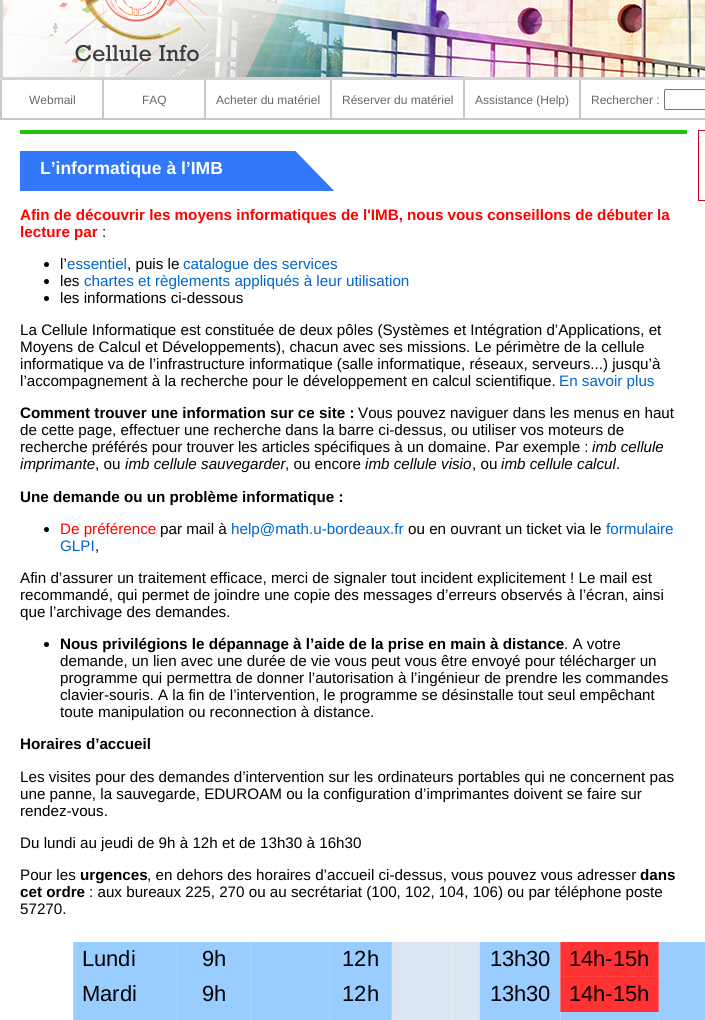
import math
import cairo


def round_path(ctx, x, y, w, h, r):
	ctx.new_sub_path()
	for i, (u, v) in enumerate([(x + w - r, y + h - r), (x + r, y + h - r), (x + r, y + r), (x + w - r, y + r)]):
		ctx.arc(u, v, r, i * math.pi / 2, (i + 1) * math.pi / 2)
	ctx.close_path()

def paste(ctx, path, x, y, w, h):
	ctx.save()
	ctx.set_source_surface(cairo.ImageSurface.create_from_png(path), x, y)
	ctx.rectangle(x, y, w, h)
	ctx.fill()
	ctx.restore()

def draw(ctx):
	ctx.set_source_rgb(1, 1, 1)
	ctx.paint()
	paste(ctx, 'media/1.png', 0, 0, 705, 80)
	ctx.set_source_rgb(0.784, 0.784, 0.784)
	ctx.rectangle(0, 118, 705, 2)
	ctx.fill()
	ctx.rectangle(0, 80, 2, 40)
	ctx.fill()
	ctx.select_font_face('Liberation Sans')
	ctx.set_font_size(12)
	ctx.set_source_rgb(0.4, 0.4, 0.4)
	ctx.move_to(29, 104)
	ctx.show_text('Webmail')
	ctx.set_source_rgb(0.784, 0.784, 0.784)
	ctx.rectangle(102, 80, 2, 40)
	ctx.fill()
	ctx.set_source_rgb(0.4, 0.4, 0.4)
	ctx.move_to(142, 104)
	ctx.show_text('FAQ')
	ctx.set_source_rgb(0.784, 0.784, 0.784)
	ctx.rectangle(204, 80, 2, 40)
	ctx.fill()
	ctx.set_source_rgb(0.4, 0.4, 0.4)
	ctx.move_to(216, 104)
	ctx.show_text('Acheter du matériel')
	ctx.set_source_rgb(0.784, 0.784, 0.784)
	ctx.rectangle(330, 80, 2, 40)
	ctx.fill()
	ctx.set_source_rgb(0.4, 0.4, 0.4)
	ctx.move_to(342, 104)
	ctx.show_text('Réserver du matériel')
	ctx.set_source_rgb(0.784, 0.784, 0.784)
	ctx.rectangle(463, 80, 2, 40)
	ctx.fill()
	ctx.set_source_rgb(0.4, 0.4, 0.4)
	ctx.move_to(475, 104)
	ctx.show_text('Assistance (Help)')
	ctx.set_source_rgb(0.784, 0.784, 0.784)
	ctx.rectangle(579, 80, 2, 40)
	ctx.fill()
	ctx.set_source_rgb(0.4, 0.4, 0.4)
	ctx.move_to(591, 104)
	ctx.show_text('Rechercher :')
	round_path(ctx, 664.5, 89.5, 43, 20, 1.5)
	ctx.set_source_rgb(0.463, 0.463, 0.463)
	ctx.set_line_width(1)
	ctx.stroke()
	ctx.set_source_rgb(0.106, 0.78, 0.035)
	ctx.rectangle(20, 130, 667, 2)
	ctx.rectangle(685, 130, 2, 4)
	ctx.rectangle(20, 132, 667, 2)
	ctx.fill()
	ctx.rectangle(698.5, 130.5, 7, 70)
	ctx.set_source_rgb(0.816, 0, 0.173)
	ctx.stroke()
	paste(ctx, 'media/2.png', 20, 151, 315, 40)
	ctx.select_font_face('Liberation Sans', cairo.FONT_SLANT_NORMAL, cairo.FONT_WEIGHT_BOLD)
	ctx.set_font_size(17.5)
	ctx.set_source_rgb(1, 1, 1)
	ctx.move_to(40, 174)
	ctx.show_text('L’informatique à l’IMB')
	ctx.set_font_size(15.2)
	ctx.set_source_rgb(1, 0, 0)
	ctx.move_to(20, 220)
	ctx.show_text('Afin de découvrir les moyens informatiques de l\'IMB, nous vous conseillons de débuter la')
	ctx.move_to(20, 237)
	ctx.show_text('lecture par')
	ctx.select_font_face('Liberation Sans')
	ctx.set_source_rgb(0, 0, 0)
	ctx.move_to(102, 237)
	ctx.show_text(':')
	ctx.new_path()
	ctx.arc(46.5, 264.5, 2.5, 0, 2 * math.pi)
	ctx.fill()
	ctx.move_to(60, 269)
	ctx.show_text('l’')
	ctx.set_source_rgb(0, 0.4, 0.8)
	ctx.move_to(67, 269)
	ctx.show_text('essentiel')
	ctx.set_source_rgb(0, 0, 0)
	ctx.move_to(127, 269)
	ctx.show_text(', puis le')
	ctx.set_source_rgb(0, 0.4, 0.8)
	ctx.move_to(183, 269)
	ctx.show_text('catalogue des services')
	ctx.set_source_rgb(0, 0, 0)
	ctx.new_path()
	ctx.arc(46.5, 281.5, 2.5, 0, 2 * math.pi)
	ctx.fill()
	ctx.move_to(60, 286)
	ctx.show_text('les')
	ctx.set_source_rgb(0, 0.4, 0.8)
	ctx.move_to(84, 286)
	ctx.show_text('chartes et règlements appliqués à leur utilisation')
	ctx.set_source_rgb(0, 0, 0)
	ctx.new_path()
	ctx.arc(46.5, 298.5, 2.5, 0, 2 * math.pi)
	ctx.fill()
	for x, y, s in [
		(60, 303, 'les informations ci-dessous'),
		(20, 335, 'La Cellule Informatique est constituée de deux pôles (Systèmes et Intégration d’Applications, et'),
		(20, 352, 'Moyens de Calcul et Développements), chacun avec ses missions. Le périmètre de la cellule'),
		(20, 369, 'informatique va de l’infrastructure informatique (salle informatique, réseaux, serveurs...) jusqu’à'),
		(20, 386, 'l’accompagnement à la recherche pour le développement en calcul scientifique.'),
	]:
		ctx.move_to(x, y)
		ctx.show_text(s)
	ctx.set_source_rgb(0, 0.4, 0.8)
	ctx.move_to(559, 386)
	ctx.show_text('En savoir plus')
	ctx.select_font_face('Liberation Sans', cairo.FONT_SLANT_NORMAL, cairo.FONT_WEIGHT_BOLD)
	ctx.set_source_rgb(0, 0, 0)
	ctx.move_to(20, 418)
	ctx.show_text('Comment trouver une information sur ce site :')
	ctx.select_font_face('Liberation Sans')
	for x, y, s in [
		(358, 418, 'Vous pouvez naviguer dans les menus en haut'),
		(20, 435, 'de cette page, effectuer une recherche dans la barre ci-dessus, ou utiliser vos moteurs de'),
		(20, 452, 'recherche préférés pour trouver les articles spécifiques à un domaine. Par exemple :'),
	]:
		ctx.move_to(x, y)
		ctx.show_text(s)
	ctx.select_font_face('Liberation Sans', cairo.FONT_SLANT_ITALIC)
	ctx.move_to(592, 452)
	ctx.show_text('imb cellule')
	ctx.move_to(20, 469)
	ctx.show_text('imprimante')
	ctx.select_font_face('Liberation Sans')
	ctx.move_to(95, 469)
	ctx.show_text(', ou')
	ctx.select_font_face('Liberation Sans', cairo.FONT_SLANT_ITALIC)
	ctx.move_to(125, 469)
	ctx.show_text('imb cellule sauvegarder')
	ctx.select_font_face('Liberation Sans')
	ctx.move_to(285, 469)
	ctx.show_text(', ou encore')
	ctx.select_font_face('Liberation Sans', cairo.FONT_SLANT_ITALIC)
	ctx.move_to(365, 469)
	ctx.show_text('imb cellule visio')
	ctx.select_font_face('Liberation Sans')
	ctx.move_to(472, 469)
	ctx.show_text(', ou')
	ctx.select_font_face('Liberation Sans', cairo.FONT_SLANT_ITALIC)
	ctx.move_to(501, 469)
	ctx.show_text('imb cellule calcul')
	ctx.select_font_face('Liberation Sans')
	ctx.move_to(616, 469)
	ctx.show_text('.')
	ctx.select_font_face('Liberation Sans', cairo.FONT_SLANT_NORMAL, cairo.FONT_WEIGHT_BOLD)
	ctx.move_to(20, 502)
	ctx.show_text('Une demande ou un problème informatique :')
	ctx.new_path()
	ctx.arc(46.5, 529.5, 2.5, 0, 2 * math.pi)
	ctx.fill()
	ctx.select_font_face('Liberation Sans')
	ctx.set_source_rgb(1, 0, 0)
	ctx.move_to(60, 534)
	ctx.show_text('De préférence')
	ctx.set_source_rgb(0, 0, 0)
	ctx.move_to(160, 534)
	ctx.show_text('par mail à')
	ctx.set_source_rgb(0, 0.4, 0.8)
	ctx.move_to(231, 534)
	ctx.show_text('help@math.u-bordeaux.fr')
	ctx.set_source_rgb(0, 0, 0)
	ctx.move_to(408, 534)
	ctx.show_text('ou en ouvrant un ticket via le')
	ctx.set_source_rgb(0, 0.4, 0.8)
	ctx.move_to(606, 534)
	ctx.show_text('formulaire')
	ctx.move_to(60, 551)
	ctx.show_text('GLPI')
	ctx.set_source_rgb(0, 0, 0)
	for x, y, s in [
		(95, 551, ','),
		(20, 583, 'Afin d’assurer un traitement efficace, merci de signaler tout incident explicitement ! Le mail est'),
		(20, 600, 'recommandé, qui permet de joindre une copie des messages d’erreurs observés à l’écran, ainsi'),
		(20, 617, 'que l’archivage des demandes.'),
	]:
		ctx.move_to(x, y)
		ctx.show_text(s)
	ctx.new_path()
	ctx.arc(46.5, 644.5, 2.5, 0, 2 * math.pi)
	ctx.fill()
	ctx.select_font_face('Liberation Sans', cairo.FONT_SLANT_NORMAL, cairo.FONT_WEIGHT_BOLD)
	ctx.move_to(60, 649)
	ctx.show_text('Nous privilégions le dépannage à l’aide de la prise en main à distance')
	ctx.select_font_face('Liberation Sans')
	for x, y, s in [
		(564, 649, '. A votre'),
		(60, 666, 'demande, un lien avec une durée de vie vous peut vous être envoyé pour télécharger un'),
		(60, 683, 'programme qui permettra de donner l’autorisation à l’ingénieur de prendre les commandes'),
		(60, 700, 'clavier-souris. A la fin de l’intervention, le programme se désinstalle tout seul empêchant'),
		(60, 717, 'toute manipulation ou reconnection à distance.'),
	]:
		ctx.move_to(x, y)
		ctx.show_text(s)
	ctx.select_font_face('Liberation Sans', cairo.FONT_SLANT_NORMAL, cairo.FONT_WEIGHT_BOLD)
	ctx.move_to(20, 749)
	ctx.show_text('Horaires d’accueil')
	ctx.select_font_face('Liberation Sans')
	for x, y, s in [
		(20, 782, 'Les visites pour des demandes d’intervention sur les ordinateurs portables qui ne concernent pas'),
		(20, 799, 'une panne, la sauvegarde, EDUROAM ou la configuration d’imprimantes doivent se faire sur'),
		(20, 816, 'rendez-vous.'),
		(20, 848, 'Du lundi au jeudi de 9h à 12h et de 13h30 à 16h30'),
		(20, 880, 'Pour les'),
	]:
		ctx.move_to(x, y)
		ctx.show_text(s)
	ctx.select_font_face('Liberation Sans', cairo.FONT_SLANT_NORMAL, cairo.FONT_WEIGHT_BOLD)
	ctx.move_to(80, 880)
	ctx.show_text('urgences')
	ctx.select_font_face('Liberation Sans')
	ctx.move_to(147, 880)
	ctx.show_text(', en dehors des horaires d’accueil ci-dessus, vous pouvez vous adresser')
	ctx.select_font_face('Liberation Sans', cairo.FONT_SLANT_NORMAL, cairo.FONT_WEIGHT_BOLD)
	ctx.move_to(640, 880)
	ctx.show_text('dans')
	ctx.move_to(20, 897)
	ctx.show_text('cet ordre')
	ctx.select_font_face('Liberation Sans')
	ctx.move_to(89, 897)
	ctx.show_text(': aux bureaux 225, 270 ou au secrétariat (100, 102, 104, 106) ou par téléphone poste')
	ctx.move_to(20, 914)
	ctx.show_text('57270.')
	paste(ctx, 'media/3.png', 73, 942, 632, 78)


surface = cairo.ImageSurface(cairo.FORMAT_RGB24, 705, 1020)
ctx = cairo.Context(surface)
options = cairo.FontOptions()
options.set_hint_metrics(cairo.HINT_METRICS_OFF)
options.set_hint_style(cairo.HINT_STYLE_NONE)
ctx.set_font_options(options)
ctx.set_miter_limit(4)
draw(ctx)
surface.write_to_png('image.png')
